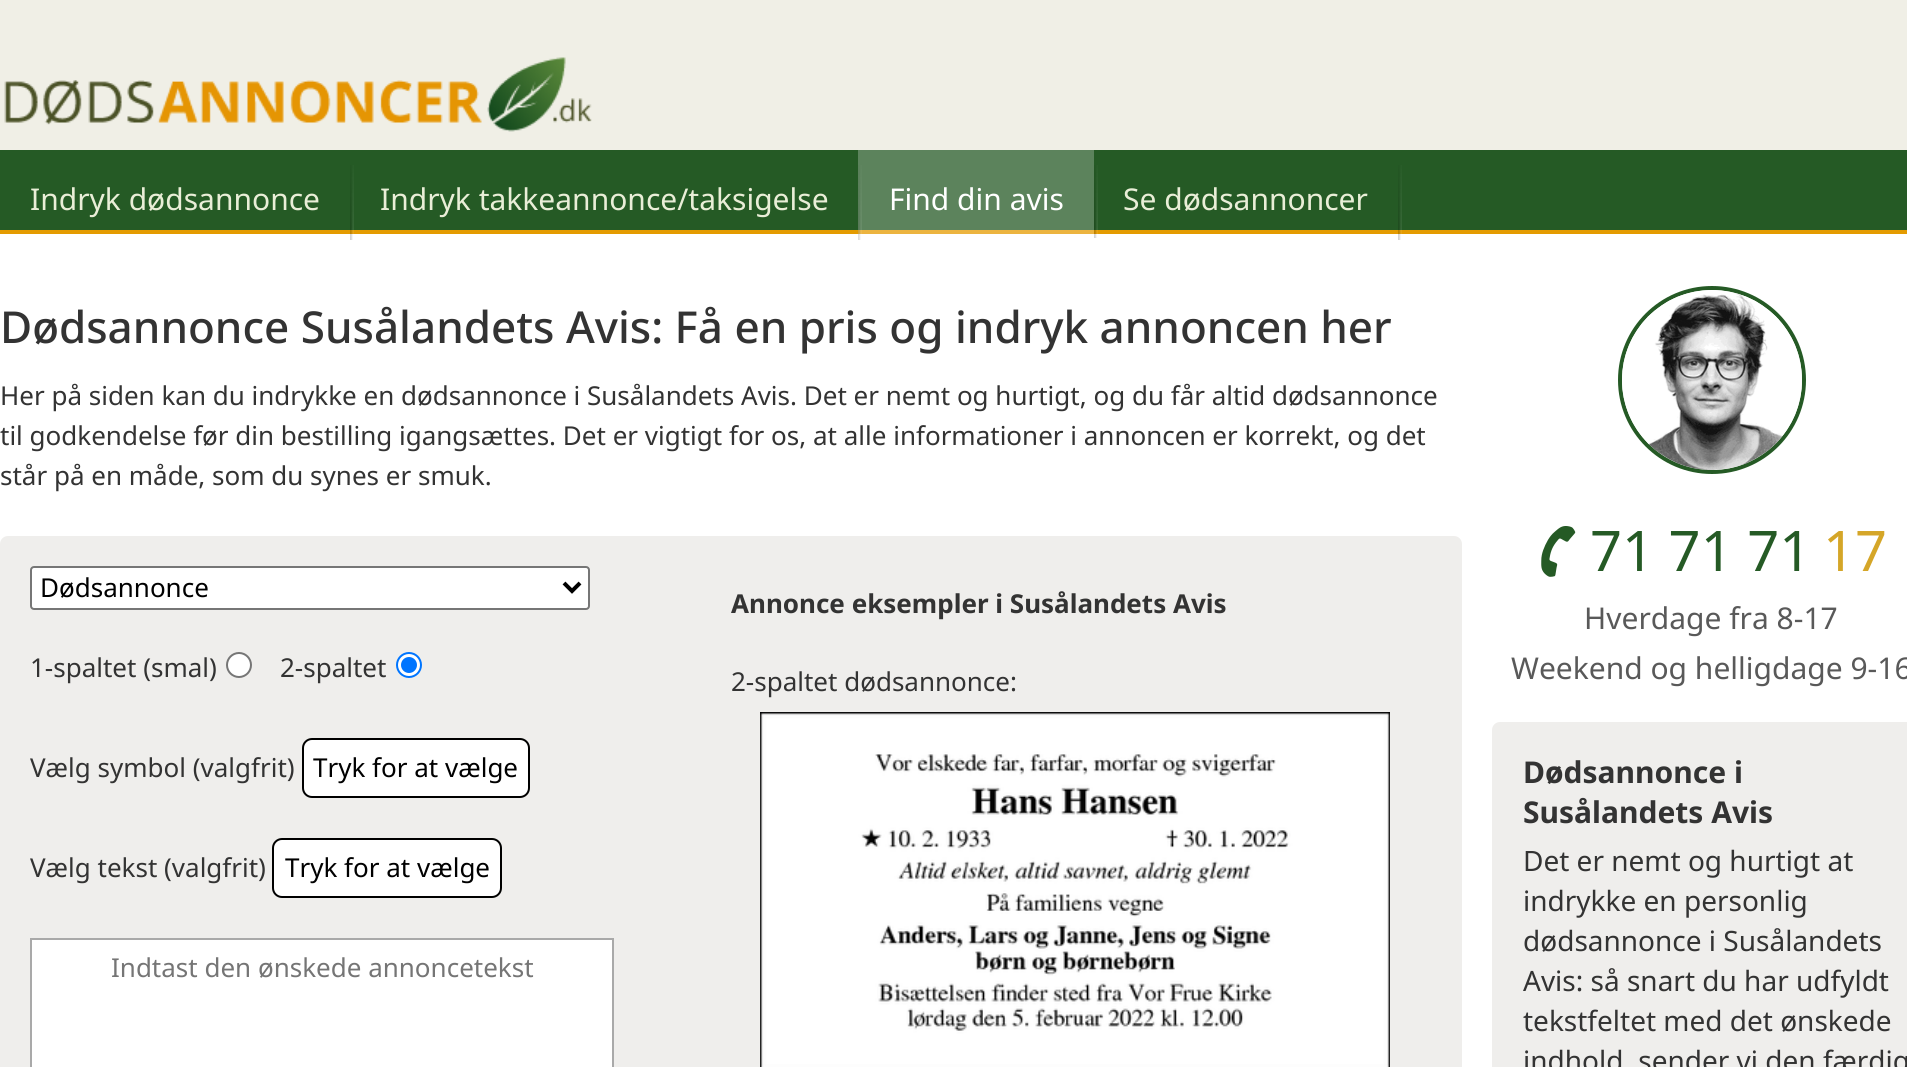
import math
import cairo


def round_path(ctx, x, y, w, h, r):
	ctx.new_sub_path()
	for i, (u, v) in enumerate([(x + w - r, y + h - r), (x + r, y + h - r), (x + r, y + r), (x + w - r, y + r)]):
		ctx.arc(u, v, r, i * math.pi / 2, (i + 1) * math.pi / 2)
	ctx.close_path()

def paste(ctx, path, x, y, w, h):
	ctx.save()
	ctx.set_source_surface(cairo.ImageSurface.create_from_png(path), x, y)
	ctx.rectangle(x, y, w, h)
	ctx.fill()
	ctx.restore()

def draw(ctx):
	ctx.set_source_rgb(1, 1, 1)
	ctx.paint()
	ctx.set_source_rgb(0.941, 0.937, 0.902)
	ctx.rectangle(0, 0, 1907, 150)
	ctx.fill()
	paste(ctx, 'media/1.png', 4, 57, 588, 75)
	ctx.set_source_rgb(0.145, 0.353, 0.145)
	ctx.rectangle(0, 150, 1907, 80)
	ctx.fill()
	ctx.set_source_rgb(0.361, 0.514, 0.361)
	ctx.rectangle(858, 150, 236, 80)
	ctx.fill()
	ctx.set_source_rgb(0.894, 0.608, 0)
	ctx.rectangle(0, 230, 1907, 4)
	ctx.fill()
	ctx.set_source_rgb(0.922, 0.706, 0.251)
	ctx.rectangle(858, 230, 236, 4)
	ctx.fill()
	ctx.select_font_face('Noto Sans')
	ctx.set_font_size(30)
	ctx.set_source_rgb(0.914, 0.933, 0.843)
	ctx.move_to(30, 210)
	ctx.show_text('Indryk dødsannonce')
	paste(ctx, 'media/2.png', 350, 165, 4, 75)
	ctx.move_to(380, 210)
	ctx.show_text('Indryk takkeannonce/taksigelse')
	paste(ctx, 'media/3.png', 858, 165, 4, 75)
	ctx.set_source_rgb(1, 1, 1)
	ctx.move_to(889, 210)
	ctx.show_text('Find din avis')
	paste(ctx, 'media/4.png', 1094, 165, 4, 73)
	ctx.set_source_rgb(0.914, 0.933, 0.843)
	ctx.move_to(1123, 210)
	ctx.show_text('Se dødsannoncer')
	paste(ctx, 'media/2.png', 1398, 165, 4, 75)
	ctx.select_font_face('Noto Sans Medium')
	ctx.set_font_size(44)
	ctx.set_source_rgb(0.2, 0.2, 0.2)
	ctx.move_to(0, 343)
	ctx.show_text('Dødsannonce Susålandets Avis: Få en pris og indryk annoncen her')
	ctx.select_font_face('Noto Sans')
	ctx.set_font_size(26)
	for x, y, s in [
		(0, 405, 'Her på siden kan du indrykke en dødsannonce i Susålandets Avis. Det er nemt og hurtigt, og du får altid dødsannonce'),
		(0, 445, 'til godkendelse før din bestilling igangsættes. Det er vigtigt for os, at alle informationer i annoncen er korrekt, og det'),
		(0, 485, 'står på en måde, som du synes er smuk.'),
	]:
		ctx.move_to(x, y)
		ctx.show_text(s)
	ctx.set_source_rgb(0.937, 0.933, 0.925)
	round_path(ctx, 0, 536, 1462, 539, 8)
	ctx.fill()
	ctx.set_source_rgb(1, 1, 1)
	round_path(ctx, 31, 567, 558, 42, 3)
	ctx.fill_preserve()
	ctx.set_source_rgb(0.463, 0.463, 0.463)
	ctx.stroke()
	ctx.new_path()
	ctx.move_to(564, 583)
	ctx.line_to(572, 591)
	ctx.line_to(580, 583)
	ctx.set_source_rgb(0, 0, 0)
	ctx.set_line_width(4)
	ctx.stroke()
	ctx.move_to(40, 597)
	ctx.show_text('Dødsannonce')
	ctx.set_source_rgb(0.2, 0.2, 0.2)
	ctx.move_to(30, 677)
	ctx.show_text('1-spaltet (smal)')
	ctx.set_source_rgb(1, 1, 1)
	ctx.new_path()
	ctx.arc(239, 665, 12, 0, 2 * math.pi)
	ctx.fill_preserve()
	ctx.set_source_rgb(0.463, 0.463, 0.463)
	ctx.set_line_width(2)
	ctx.stroke()
	ctx.set_source_rgb(0.2, 0.2, 0.2)
	ctx.move_to(280, 677)
	ctx.show_text('2-spaltet')
	ctx.set_source_rgb(1, 1, 1)
	ctx.new_path()
	ctx.arc(409, 665, 12, 0, 2 * math.pi)
	ctx.fill_preserve()
	ctx.set_source_rgb(0, 0.459, 1)
	ctx.stroke()
	ctx.arc(409, 665, 8, 0, 2 * math.pi)
	ctx.fill()
	ctx.set_source_rgb(0.2, 0.2, 0.2)
	ctx.move_to(30, 777)
	ctx.show_text('Vælg symbol (valgfrit)')
	ctx.set_source_rgb(1, 1, 1)
	round_path(ctx, 303, 739, 226, 58, 9)
	ctx.fill_preserve()
	ctx.set_source_rgb(0, 0, 0)
	ctx.stroke()
	ctx.move_to(313, 777)
	ctx.show_text('Tryk for at vælge')
	ctx.set_source_rgb(0.2, 0.2, 0.2)
	ctx.move_to(30, 877)
	ctx.show_text('Vælg tekst (valgfrit)')
	ctx.set_source_rgb(1, 1, 1)
	round_path(ctx, 273, 839, 228, 58, 9)
	ctx.fill_preserve()
	ctx.set_source_rgb(0, 0, 0)
	ctx.stroke()
	ctx.move_to(285, 877)
	ctx.show_text('Tryk for at vælge')
	ctx.set_source_rgb(1, 1, 1)
	ctx.rectangle(31, 939, 582, 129)
	ctx.fill_preserve()
	ctx.set_source_rgb(0.663, 0.663, 0.663)
	ctx.stroke()
	ctx.set_source_rgb(0.459, 0.459, 0.459)
	ctx.move_to(111, 977)
	ctx.show_text('Indtast den ønskede annoncetekst')
	ctx.select_font_face('Noto Sans', cairo.FONT_SLANT_NORMAL, cairo.FONT_WEIGHT_BOLD)
	ctx.set_source_rgb(0.2, 0.2, 0.2)
	ctx.move_to(731, 613)
	ctx.show_text('Annonce eksempler i Susålandets Avis')
	ctx.select_font_face('Noto Sans')
	ctx.move_to(731, 691)
	ctx.show_text('2-spaltet dødsannonce:')
	paste(ctx, 'media/5.png', 760, 712, 630, 355)
	ctx.arc(1712, 380, 92, 0, 2 * math.pi)
	ctx.set_source_rgb(0.145, 0.353, 0.145)
	ctx.set_line_width(4)
	ctx.stroke()
	paste(ctx, 'media/6.png', 1622, 290, 180, 180)
	paste(ctx, 'media/7.png', 1541, 526, 35, 51)
	ctx.set_font_size(56)
	ctx.move_to(1590, 571)
	ctx.show_text('71 71 71')
	ctx.set_source_rgb(0.835, 0.651, 0.157)
	ctx.move_to(1823, 571)
	ctx.show_text('17')
	ctx.set_font_size(30)
	ctx.set_source_rgb(0.349, 0.349, 0.349)
	ctx.move_to(1584, 629)
	ctx.show_text('Hverdage fra 8-17')
	ctx.move_to(1511, 679)
	ctx.show_text('Weekend og helligdage 9-16')
	ctx.set_source_rgb(0.937, 0.933, 0.925)
	round_path(ctx, 1492, 722, 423, 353, 8)
	ctx.fill()
	ctx.select_font_face('Noto Sans', cairo.FONT_SLANT_NORMAL, cairo.FONT_WEIGHT_BOLD)
	ctx.set_source_rgb(0.2, 0.2, 0.2)
	ctx.move_to(1523, 783)
	ctx.show_text('Dødsannonce i')
	ctx.move_to(1523, 823)
	ctx.show_text('Susålandets Avis')
	ctx.select_font_face('Noto Sans')
	ctx.set_font_size(28)
	for x, y, s in [
		(1523, 871, 'Det er nemt og hurtigt at'),
		(1523, 911, 'indrykke en personlig'),
		(1523, 951, 'dødsannonce i Susålandets'),
		(1523, 991, 'Avis: så snart du har udfyldt'),
		(1523, 1031, 'tekstfeltet med det ønskede'),
		(1523, 1071, 'indhold, sender vi den færdig'),
	]:
		ctx.move_to(x, y)
		ctx.show_text(s)


surface = cairo.ImageSurface(cairo.FORMAT_RGB24, 1907, 1067)
ctx = cairo.Context(surface)
options = cairo.FontOptions()
options.set_hint_metrics(cairo.HINT_METRICS_OFF)
options.set_hint_style(cairo.HINT_STYLE_NONE)
ctx.set_font_options(options)
ctx.set_miter_limit(4)
draw(ctx)
surface.write_to_png('image.png')
